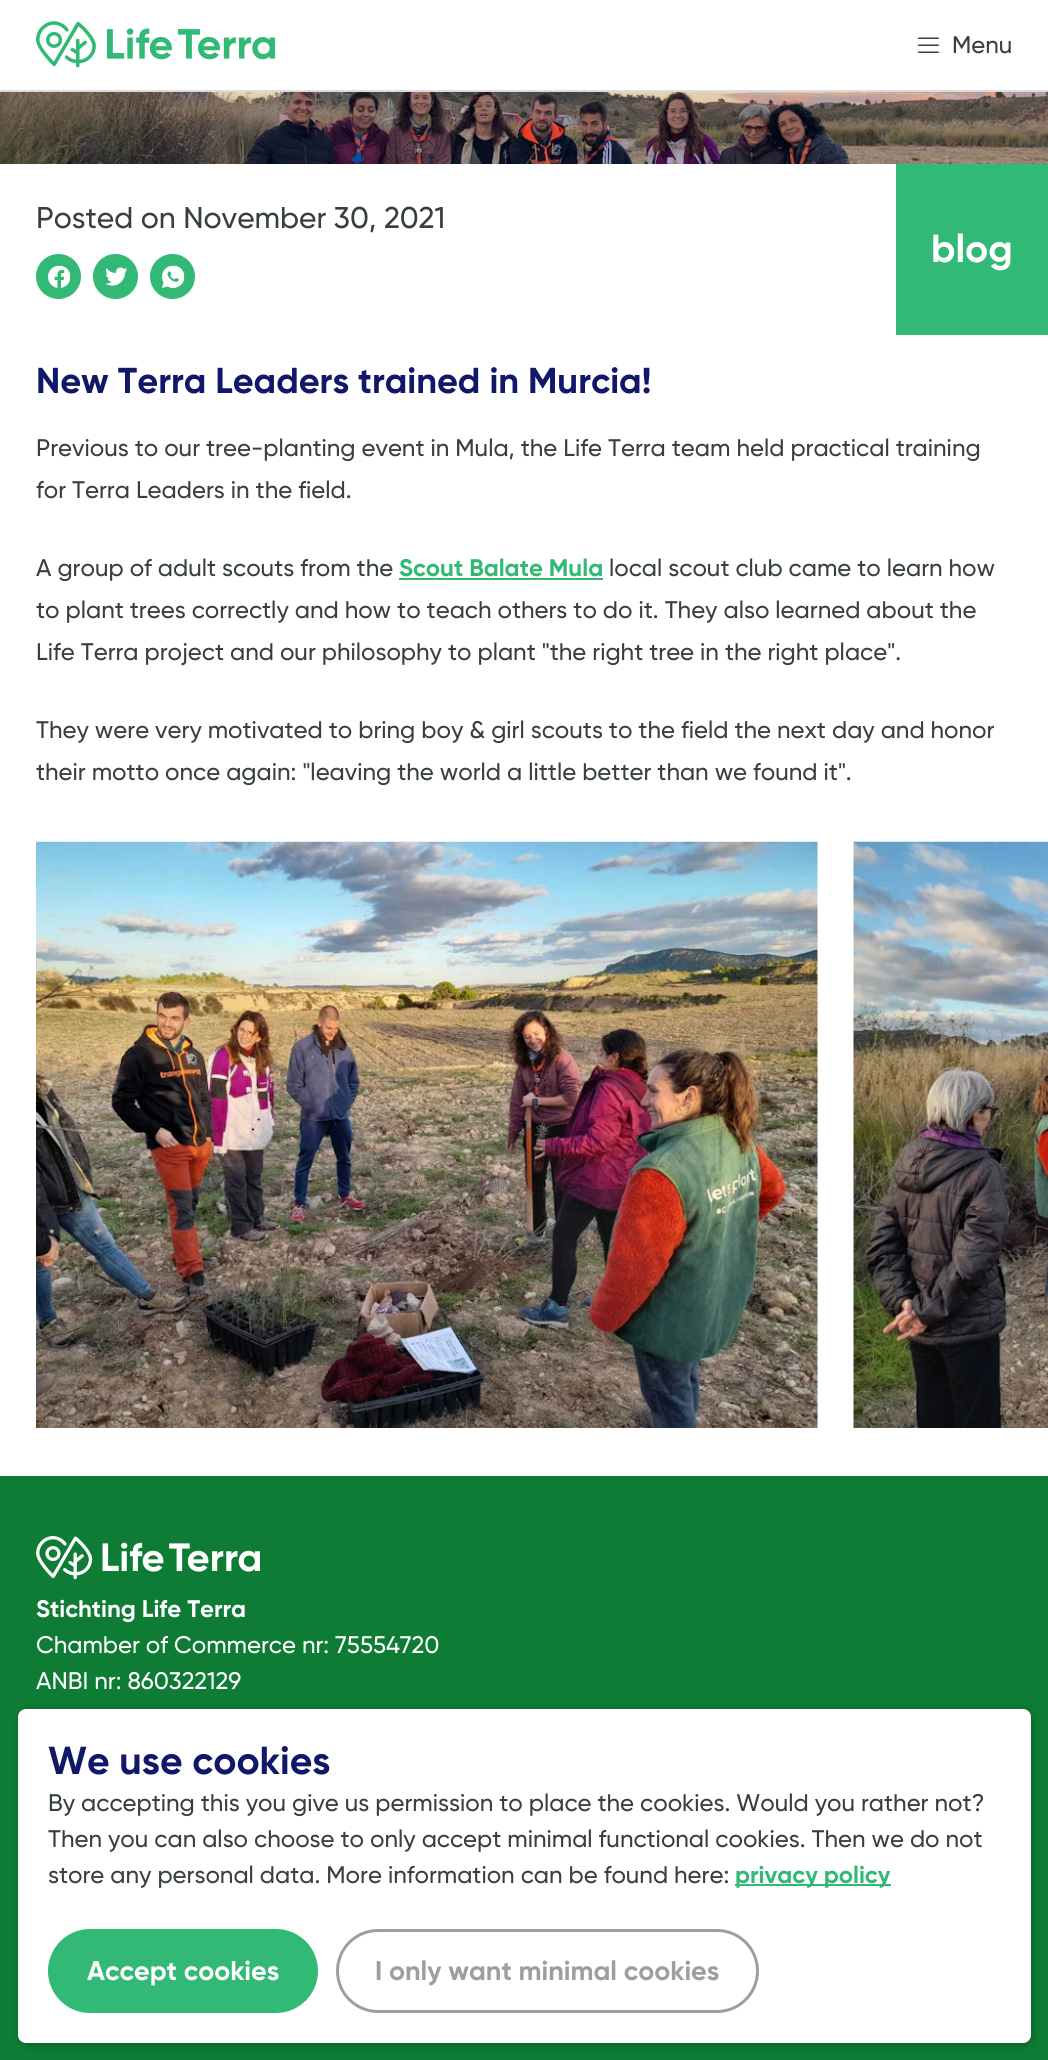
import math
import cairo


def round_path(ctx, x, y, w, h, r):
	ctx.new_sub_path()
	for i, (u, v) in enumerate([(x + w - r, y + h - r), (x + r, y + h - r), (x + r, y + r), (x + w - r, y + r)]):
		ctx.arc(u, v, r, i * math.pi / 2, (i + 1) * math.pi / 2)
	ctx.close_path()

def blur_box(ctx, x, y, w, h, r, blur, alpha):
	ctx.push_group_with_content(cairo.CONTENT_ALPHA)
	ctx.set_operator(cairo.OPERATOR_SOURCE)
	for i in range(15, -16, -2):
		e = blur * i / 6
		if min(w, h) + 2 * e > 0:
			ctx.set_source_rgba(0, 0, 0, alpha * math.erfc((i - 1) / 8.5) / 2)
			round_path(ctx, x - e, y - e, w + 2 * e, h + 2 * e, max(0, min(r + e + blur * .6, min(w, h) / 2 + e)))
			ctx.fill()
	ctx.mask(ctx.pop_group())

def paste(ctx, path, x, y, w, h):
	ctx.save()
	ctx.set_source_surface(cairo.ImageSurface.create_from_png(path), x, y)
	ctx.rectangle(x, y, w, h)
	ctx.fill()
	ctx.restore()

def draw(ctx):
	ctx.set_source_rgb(1, 1, 1)
	ctx.paint()
	ctx.set_source_rgb(0.859, 0.859, 0.859)
	ctx.rectangle(0, 90, 1048, 2)
	ctx.fill()
	paste(ctx, 'media/1.png', 36, 21, 239, 47)
	paste(ctx, 'media/2.png', 917, 37, 23, 16)
	ctx.select_font_face('Gilroy Medium')
	ctx.set_font_size(24)
	ctx.set_source_rgb(0.22, 0.247, 0.247)
	ctx.move_to(952, 53)
	ctx.show_text('Menu')
	paste(ctx, 'media/3.png', 0, 92, 1048, 72)
	ctx.set_font_size(30)
	ctx.move_to(36, 228)
	ctx.show_text('Posted on November 30, 2021')
	ctx.set_source_rgb(0.192, 0.725, 0.459)
	ctx.new_path()
	ctx.arc(58.5, 276.5, 22.5, 0, 2 * math.pi)
	ctx.fill()
	paste(ctx, 'media/4.png', 48, 265, 23, 23)
	ctx.arc(115.5, 276.5, 22.5, 0, 2 * math.pi)
	ctx.fill()
	paste(ctx, 'media/5.png', 105, 267, 23, 19)
	ctx.arc(172.5, 276.5, 22.5, 0, 2 * math.pi)
	ctx.fill()
	paste(ctx, 'media/6.png', 162, 265, 23, 23)
	ctx.rectangle(896, 164, 152, 171)
	ctx.fill()
	ctx.select_font_face('Gilroy', cairo.FONT_SLANT_NORMAL, cairo.FONT_WEIGHT_BOLD)
	ctx.set_font_size(39)
	ctx.set_source_rgb(1, 1, 1)
	ctx.move_to(931, 262)
	ctx.show_text('blog')
	ctx.set_font_size(36)
	ctx.set_source_rgb(0.067, 0.094, 0.416)
	ctx.move_to(36, 393)
	ctx.show_text('New Terra Leaders trained in Murcia!')
	ctx.select_font_face('Gilroy Medium')
	ctx.set_font_size(24)
	ctx.set_source_rgb(0.22, 0.247, 0.247)
	for x, y, s in [
		(36, 456, 'Previous to our tree-planting event in Mula, the Life Terra team held practical training'),
		(36, 498, 'for Terra Leaders in the field.'),
		(36, 576, 'A group of adult scouts from the'),
	]:
		ctx.move_to(x, y)
		ctx.show_text(s)
	ctx.select_font_face('Gilroy', cairo.FONT_SLANT_NORMAL, cairo.FONT_WEIGHT_BOLD)
	ctx.set_source_rgb(0.192, 0.725, 0.459)
	ctx.move_to(399, 576)
	ctx.show_text('Scout Balate Mula')
	ctx.rectangle(399, 578, 204, 2)
	ctx.fill()
	ctx.select_font_face('Gilroy Medium')
	ctx.set_source_rgb(0.22, 0.247, 0.247)
	for x, y, s in [
		(609, 576, 'local scout club came to learn how'),
		(36, 618, 'to plant trees correctly and how to teach others to do it. They also learned about the'),
		(36, 660, 'Life Terra project and our philosophy to plant "the right tree in the right place".'),
		(36, 738, 'They were very motivated to bring boy & girl scouts to the field the next day and honor'),
		(36, 780, 'their motto once again: "leaving the world a little better than we found it".'),
	]:
		ctx.move_to(x, y)
		ctx.show_text(s)
	paste(ctx, 'media/7.png', 36, 841, 782, 587)
	paste(ctx, 'media/8.png', 853, 841, 195, 587)
	ctx.set_source_rgb(0.055, 0.486, 0.208)
	ctx.rectangle(0, 1476, 1048, 584)
	ctx.fill()
	paste(ctx, 'media/9.png', 36, 1536, 224, 44)
	ctx.select_font_face('Gilroy', cairo.FONT_SLANT_NORMAL, cairo.FONT_WEIGHT_BOLD)
	ctx.set_source_rgb(1, 1, 1)
	ctx.move_to(36, 1617)
	ctx.show_text('Stichting Life Terra')
	ctx.select_font_face('Gilroy Medium')
	ctx.move_to(36, 1653)
	ctx.show_text('Chamber of Commerce nr: 75554720')
	ctx.move_to(36, 1689)
	ctx.show_text('ANBI nr: 860322129')
	ctx.set_source_rgb(0, 0, 0)
	blur_box(ctx, 20, 1710, 1012, 335, 8, 4, 0.27)
	ctx.set_source_rgb(1, 1, 1)
	round_path(ctx, 18, 1709, 1013, 334, 8)
	ctx.fill()
	ctx.select_font_face('Gilroy', cairo.FONT_SLANT_NORMAL, cairo.FONT_WEIGHT_BOLD)
	ctx.set_font_size(39)
	ctx.set_source_rgb(0.067, 0.094, 0.416)
	ctx.move_to(48, 1774)
	ctx.show_text('We use cookies')
	ctx.select_font_face('Gilroy Medium')
	ctx.set_font_size(24)
	ctx.set_source_rgb(0.22, 0.247, 0.247)
	for x, y, s in [
		(48, 1811, 'By accepting this you give us permission to place the cookies. Would you rather not?'),
		(48, 1847, 'Then you can also choose to only accept minimal functional cookies. Then we do not'),
		(48, 1883, 'store any personal data. More information can be found here:'),
	]:
		ctx.move_to(x, y)
		ctx.show_text(s)
	ctx.set_source_rgb(0.192, 0.725, 0.459)
	ctx.rectangle(735, 1884, 156, 2)
	ctx.fill()
	ctx.select_font_face('Gilroy', cairo.FONT_SLANT_NORMAL, cairo.FONT_WEIGHT_BOLD)
	ctx.move_to(735, 1883)
	ctx.show_text('privacy policy')
	round_path(ctx, 49.5, 1930.5, 267, 81, 40.5)
	ctx.fill_preserve()
	ctx.set_line_width(3)
	ctx.stroke()
	ctx.set_font_size(27)
	ctx.set_source_rgb(1, 1, 1)
	ctx.move_to(87, 1980)
	ctx.show_text('Accept cookies')
	round_path(ctx, 337.5, 1930.5, 420, 81, 40.5)
	ctx.set_source_rgb(0.612, 0.624, 0.624)
	ctx.stroke()
	ctx.move_to(375, 1980)
	ctx.show_text('I only want minimal cookies')


surface = cairo.ImageSurface(cairo.FORMAT_RGB24, 1048, 2060)
ctx = cairo.Context(surface)
options = cairo.FontOptions()
options.set_hint_metrics(cairo.HINT_METRICS_OFF)
options.set_hint_style(cairo.HINT_STYLE_NONE)
ctx.set_font_options(options)
ctx.set_miter_limit(4)
draw(ctx)
surface.write_to_png('image.png')
